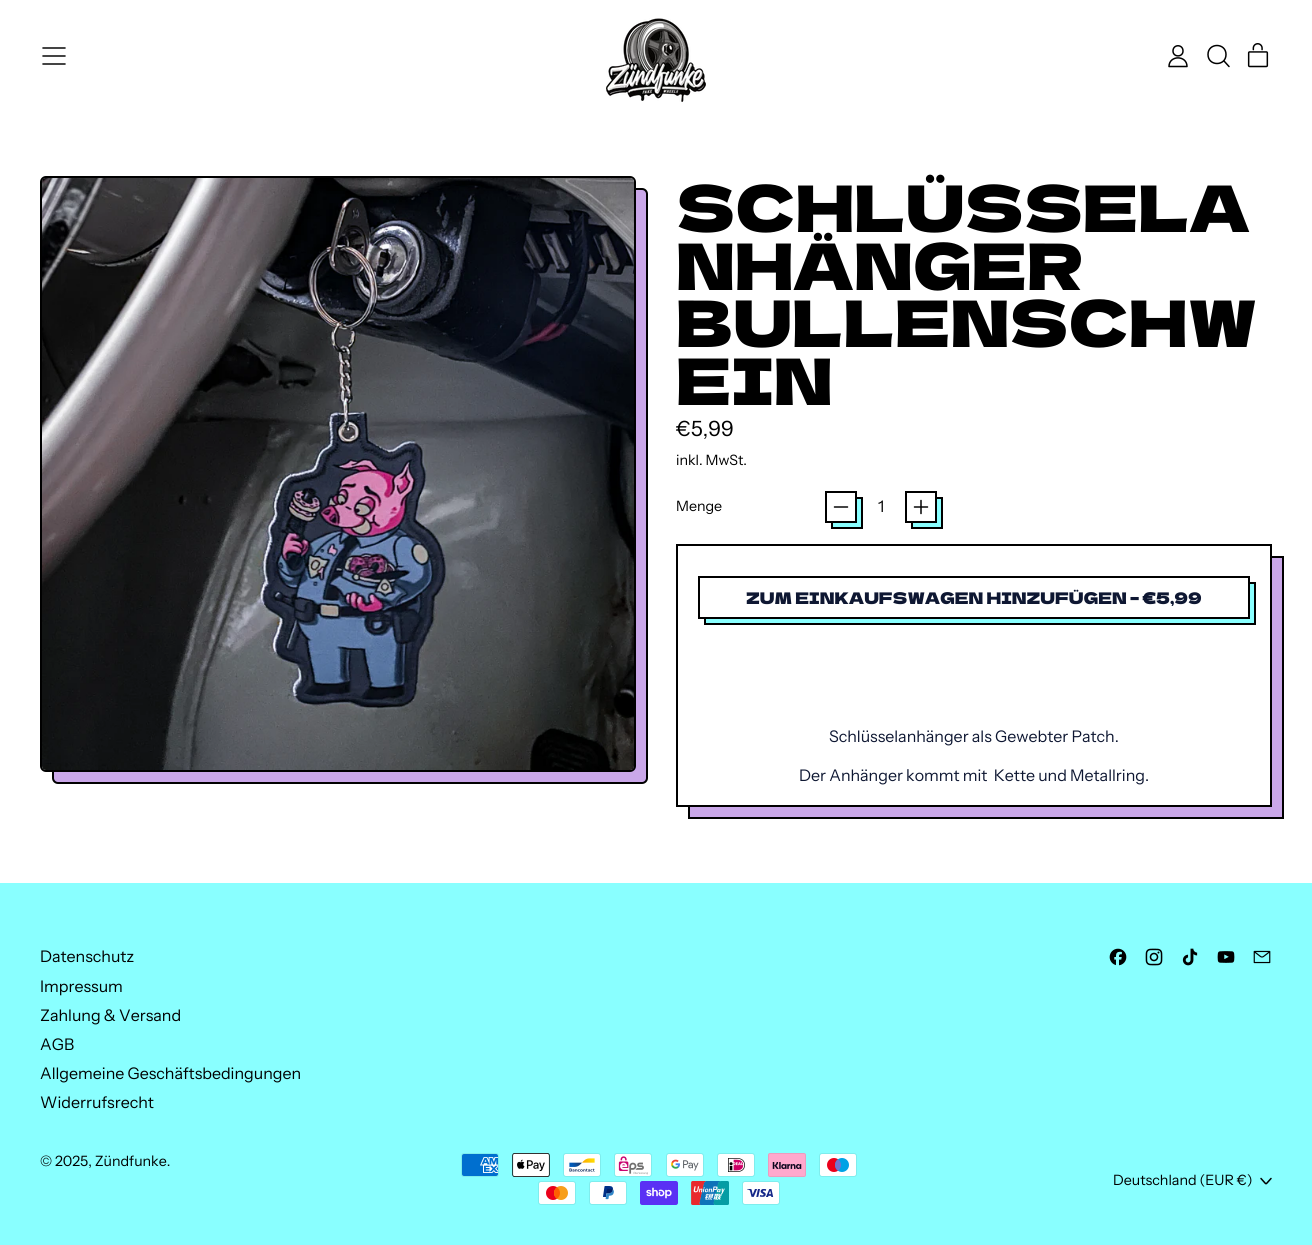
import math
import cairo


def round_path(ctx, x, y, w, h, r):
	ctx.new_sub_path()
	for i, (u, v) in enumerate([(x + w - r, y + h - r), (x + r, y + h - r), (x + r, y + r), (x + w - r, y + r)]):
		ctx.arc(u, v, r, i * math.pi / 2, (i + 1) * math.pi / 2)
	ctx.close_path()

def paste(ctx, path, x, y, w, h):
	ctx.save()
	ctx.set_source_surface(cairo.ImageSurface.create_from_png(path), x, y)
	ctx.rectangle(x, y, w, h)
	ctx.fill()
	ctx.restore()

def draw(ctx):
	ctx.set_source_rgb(1, 1, 1)
	ctx.paint()
	ctx.new_path()
	ctx.move_to(65, 64)
	ctx.line_to(43, 64)
	ctx.move_to(65, 56)
	ctx.line_to(43, 56)
	ctx.move_to(65, 48)
	ctx.line_to(43, 48)
	ctx.set_source_rgb(0, 0, 0)
	ctx.set_line_width(1.5)
	ctx.set_line_cap(cairo.LINE_CAP_ROUND)
	ctx.set_line_join(cairo.LINE_JOIN_ROUND)
	ctx.stroke()
	paste(ctx, 'media/1.png', 606, 18, 100, 84)
	ctx.new_path()
	ctx.move_to(1173, 51)
	ctx.curve_to(1173, 57.5, 1183, 57.5, 1183, 51)
	ctx.curve_to(1183, 44, 1173, 44, 1173, 51)
	ctx.close_path()
	ctx.move_to(1169, 66.5)
	ctx.curve_to(1169, 55, 1187, 55, 1187, 66.5)
	ctx.close_path()
	ctx.move_to(1208, 54.5)
	ctx.curve_to(1208, 66.5, 1226, 66.5, 1226, 54.5)
	ctx.curve_to(1226, 42.5, 1208, 42.5, 1208, 54.5)
	ctx.close_path()
	ctx.move_to(1229, 66.5)
	ctx.line_to(1224, 61)
	ctx.stroke()
	paste(ctx, 'media/2.png', 1247, 43, 22, 25)
	ctx.set_source_rgb(0.792, 0.655, 0.914)
	round_path(ctx, 53, 189, 594, 594, 5)
	ctx.fill_preserve()
	ctx.set_source_rgb(0, 0, 0)
	ctx.set_line_width(2)
	ctx.set_line_cap(cairo.LINE_CAP_BUTT)
	ctx.set_line_join(cairo.LINE_JOIN_MITER)
	ctx.stroke()
	round_path(ctx, 41, 177, 594, 594, 5)
	ctx.stroke()
	paste(ctx, 'media/3.png', 42, 178, 592, 592)
	ctx.select_font_face('Dela Gothic One')
	ctx.set_font_size(64)
	for x, y, s in [
		(676, 232, 'SCHLÜSSELA'),
		(676, 290, 'NHÄNGER'),
		(676, 347, 'BULLENSCHW'),
		(676, 405, 'EIN'),
	]:
		ctx.move_to(x, y)
		ctx.show_text(s)
	ctx.select_font_face('Instrument Sans')
	ctx.set_font_size(21)
	ctx.move_to(676, 436)
	ctx.show_text('€5,99')
	ctx.set_font_size(14.25)
	ctx.move_to(676, 465)
	ctx.show_text('inkl. MwSt.')
	ctx.move_to(676, 511)
	ctx.show_text('Menge')
	ctx.set_source_rgb(0.537, 1, 1)
	ctx.rectangle(832, 498, 30, 30)
	ctx.fill_preserve()
	ctx.set_source_rgb(0, 0, 0)
	ctx.stroke()
	ctx.set_source_rgb(1, 1, 1)
	ctx.rectangle(831, 497, 24, 24)
	ctx.fill()
	ctx.rectangle(826, 492, 30, 30)
	ctx.set_source_rgb(0, 0, 0)
	ctx.stroke()
	ctx.new_path()
	ctx.move_to(847.5, 507)
	ctx.line_to(834.5, 507)
	ctx.set_line_width(1.5)
	ctx.set_line_cap(cairo.LINE_CAP_ROUND)
	ctx.set_line_join(cairo.LINE_JOIN_ROUND)
	ctx.stroke()
	ctx.set_font_size(16)
	ctx.move_to(878, 512)
	ctx.show_text('1')
	ctx.set_source_rgb(0.537, 1, 1)
	ctx.rectangle(912, 498, 30, 30)
	ctx.fill_preserve()
	ctx.set_source_rgb(0, 0, 0)
	ctx.set_line_width(2)
	ctx.set_line_cap(cairo.LINE_CAP_BUTT)
	ctx.set_line_join(cairo.LINE_JOIN_MITER)
	ctx.stroke()
	ctx.set_source_rgb(1, 1, 1)
	ctx.rectangle(911, 497, 24, 24)
	ctx.fill()
	ctx.rectangle(906, 492, 30, 30)
	ctx.set_source_rgb(0, 0, 0)
	ctx.stroke()
	ctx.new_path()
	ctx.move_to(921, 500.5)
	ctx.line_to(921, 513.5)
	ctx.move_to(927.5, 507)
	ctx.line_to(914.5, 507)
	ctx.set_line_width(1.5)
	ctx.set_line_cap(cairo.LINE_CAP_ROUND)
	ctx.set_line_join(cairo.LINE_JOIN_ROUND)
	ctx.stroke()
	ctx.set_source_rgb(0.792, 0.655, 0.914)
	ctx.rectangle(689, 557, 594, 261)
	ctx.fill_preserve()
	ctx.set_source_rgb(0, 0, 0)
	ctx.set_line_width(2)
	ctx.set_line_cap(cairo.LINE_CAP_BUTT)
	ctx.set_line_join(cairo.LINE_JOIN_MITER)
	ctx.stroke()
	ctx.set_source_rgb(1, 1, 1)
	ctx.rectangle(688, 556, 582, 249)
	ctx.fill()
	ctx.rectangle(677, 545, 594, 261)
	ctx.set_source_rgb(0, 0, 0)
	ctx.stroke()
	ctx.set_source_rgb(0.537, 1, 1)
	ctx.rectangle(705, 583, 550, 41)
	ctx.fill_preserve()
	ctx.set_source_rgb(0, 0, 0)
	ctx.stroke()
	ctx.set_source_rgb(1, 1, 1)
	ctx.rectangle(704, 582, 544, 35)
	ctx.fill()
	ctx.rectangle(699, 577, 550, 41)
	ctx.set_source_rgb(0, 0, 0)
	ctx.stroke()
	ctx.select_font_face('Dela Gothic One')
	ctx.set_source_rgb(0.055, 0.09, 0.196)
	ctx.move_to(746, 604)
	ctx.show_text('ZUM EINKAUFSWAGEN HINZUFÜGEN – €5,99')
	ctx.select_font_face('Instrument Sans')
	ctx.move_to(829, 742)
	ctx.show_text('Schlüsselanhänger als Gewebter Patch.')
	ctx.move_to(799, 781)
	ctx.show_text('Der Anhänger kommt mit  Kette und Metallring.')
	ctx.set_source_rgb(0.537, 1, 1)
	ctx.rectangle(0, 883, 1312, 362)
	ctx.fill()
	ctx.set_source_rgb(0, 0, 0)
	for x, y, s in [
		(40, 962, 'Datenschutz'),
		(40, 992, 'Impressum'),
		(40, 1021, 'Zahlung & Versand'),
		(40, 1050, 'AGB'),
		(40, 1079, 'Allgemeine Geschäftsbedingungen'),
		(40, 1108, 'Widerrufsrecht'),
	]:
		ctx.move_to(x, y)
		ctx.show_text(s)
	paste(ctx, 'media/4.png', 1109, 948, 18, 18)
	paste(ctx, 'media/5.png', 1145, 948, 18, 18)
	paste(ctx, 'media/6.png', 1182, 948, 16, 18)
	paste(ctx, 'media/7.png', 1217, 951, 18, 12)
	paste(ctx, 'media/8.png', 1253, 950, 18, 14)
	ctx.set_font_size(14.25)
	ctx.move_to(40, 1166)
	ctx.show_text('© 2025, Zündfunke.')
	paste(ctx, 'media/9.png', 461, 1153, 38, 24)
	paste(ctx, 'media/10.png', 512, 1153, 38, 24)
	paste(ctx, 'media/11.png', 563, 1153, 38, 24)
	paste(ctx, 'media/12.png', 614, 1153, 38, 24)
	paste(ctx, 'media/13.png', 666, 1153, 38, 24)
	paste(ctx, 'media/14.png', 717, 1153, 38, 24)
	paste(ctx, 'media/15.png', 768, 1153, 38, 24)
	paste(ctx, 'media/16.png', 819, 1153, 38, 24)
	paste(ctx, 'media/17.png', 538, 1181, 38, 24)
	paste(ctx, 'media/18.png', 589, 1181, 38, 24)
	paste(ctx, 'media/19.png', 640, 1181, 38, 24)
	paste(ctx, 'media/20.png', 691, 1181, 38, 24)
	paste(ctx, 'media/21.png', 742, 1181, 38, 24)
	ctx.move_to(1113, 1185)
	ctx.show_text('Deutschland (EUR €)')
	ctx.new_path()
	ctx.move_to(1261, 1178.5)
	ctx.line_to(1265, 1183)
	ctx.curve_to(1266, 1184, 1266, 1184, 1267, 1183)
	ctx.line_to(1271, 1178.5)
	ctx.set_line_width(1.5)
	ctx.set_line_cap(cairo.LINE_CAP_ROUND)
	ctx.set_line_join(cairo.LINE_JOIN_ROUND)
	ctx.stroke()


surface = cairo.ImageSurface(cairo.FORMAT_RGB24, 1312, 1245)
ctx = cairo.Context(surface)
options = cairo.FontOptions()
options.set_hint_metrics(cairo.HINT_METRICS_OFF)
options.set_hint_style(cairo.HINT_STYLE_NONE)
ctx.set_font_options(options)
ctx.set_miter_limit(4)
draw(ctx)
surface.write_to_png('image.png')
